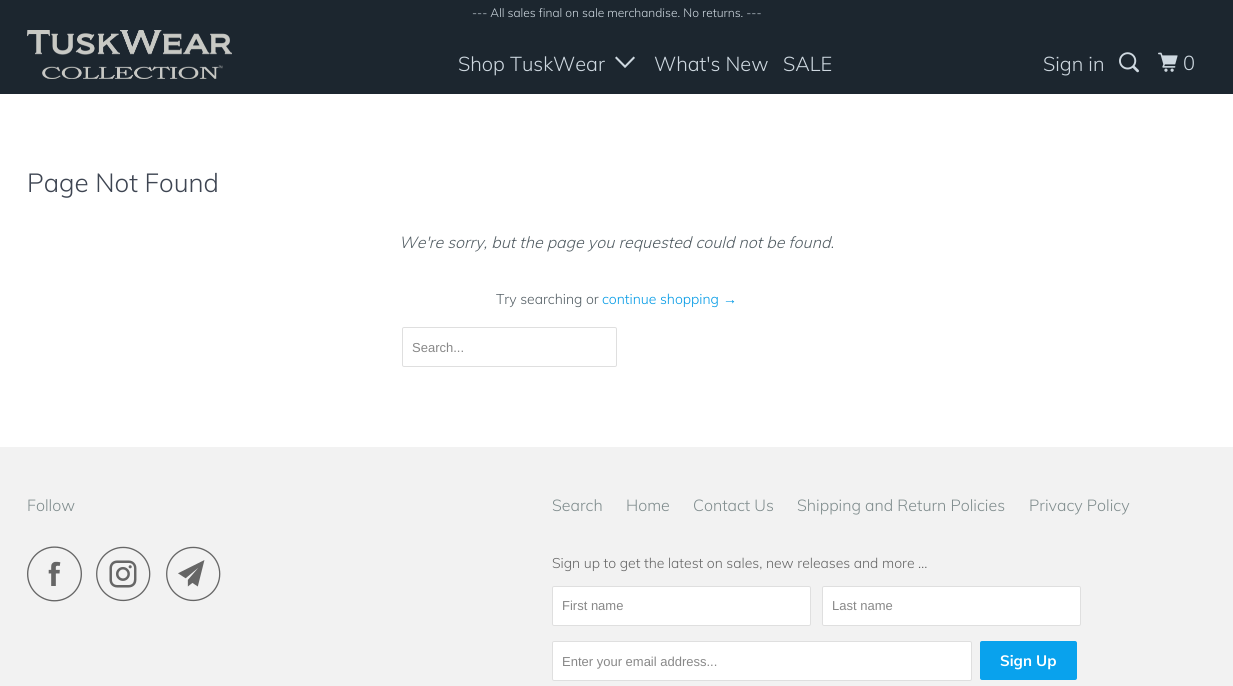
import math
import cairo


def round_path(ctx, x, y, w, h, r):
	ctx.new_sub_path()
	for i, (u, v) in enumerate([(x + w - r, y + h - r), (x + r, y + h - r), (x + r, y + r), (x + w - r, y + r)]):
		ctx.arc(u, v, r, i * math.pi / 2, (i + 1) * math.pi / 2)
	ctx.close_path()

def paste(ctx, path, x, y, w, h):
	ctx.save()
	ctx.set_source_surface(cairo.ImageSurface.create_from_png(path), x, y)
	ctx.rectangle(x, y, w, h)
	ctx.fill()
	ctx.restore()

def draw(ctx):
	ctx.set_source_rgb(1, 1, 1)
	ctx.paint()
	ctx.set_source_rgb(0.11, 0.149, 0.184)
	ctx.rectangle(0, 0, 1233, 94)
	ctx.fill()
	ctx.select_font_face('Muli Light')
	ctx.set_font_size(12)
	ctx.set_source_rgb(0.808, 0.847, 0.878)
	ctx.move_to(472, 17)
	ctx.show_text('--- All sales final on sale merchandise. No returns. ---')
	paste(ctx, 'media/1.png', 27, 30, 205, 49)
	ctx.set_font_size(20)
	ctx.move_to(458, 71)
	ctx.show_text('Shop TuskWear')
	paste(ctx, 'media/2.png', 615, 56, 20, 12)
	for x, y, s in [
		(654, 71, 'What\'s New'),
		(783, 71, 'SALE'),
		(1043, 71, 'Sign in'),
	]:
		ctx.move_to(x, y)
		ctx.show_text(s)
	paste(ctx, 'media/3.png', 1119, 52, 20, 21)
	paste(ctx, 'media/4.png', 1158, 52, 20, 20)
	ctx.move_to(1183, 70)
	ctx.show_text('0')
	ctx.set_font_size(26)
	ctx.set_source_rgb(0.243, 0.271, 0.322)
	ctx.move_to(27, 192)
	ctx.show_text('Page Not Found')
	ctx.select_font_face('Muli Light', cairo.FONT_SLANT_ITALIC)
	ctx.set_font_size(16)
	ctx.set_source_rgb(0.322, 0.365, 0.388)
	ctx.move_to(399, 248)
	ctx.show_text('We\'re sorry, but the page you requested could not be found.')
	ctx.select_font_face('Muli Light')
	ctx.set_font_size(14)
	ctx.move_to(496, 304)
	ctx.show_text('Try searching or')
	ctx.set_source_rgb(0, 0.6, 0.898)
	ctx.move_to(602, 304)
	ctx.show_text('continue shopping')
	ctx.select_font_face('Liberation Serif')
	ctx.move_to(723, 304)
	ctx.show_text('→')
	round_path(ctx, 402.5, 327.5, 214, 39, 1.5)
	ctx.set_source_rgb(0.875, 0.875, 0.875)
	ctx.set_line_width(1)
	ctx.stroke()
	ctx.select_font_face('Liberation Sans')
	ctx.set_font_size(13)
	ctx.set_source_rgb(0.533, 0.533, 0.533)
	ctx.move_to(412, 352)
	ctx.show_text('Search...')
	ctx.set_source_rgb(0.949, 0.949, 0.949)
	ctx.rectangle(0, 447, 1233, 239)
	ctx.fill()
	ctx.select_font_face('Muli Light')
	ctx.set_font_size(16)
	ctx.set_source_rgb(0.498, 0.549, 0.553)
	ctx.move_to(27, 511)
	ctx.show_text('Follow')
	paste(ctx, 'media/5.png', 27, 546, 55, 56)
	paste(ctx, 'media/6.png', 96, 546, 55, 56)
	paste(ctx, 'media/7.png', 166, 546, 55, 56)
	for x, y, s in [
		(552, 511, 'Search'),
		(626, 511, 'Home'),
		(693, 511, 'Contact Us'),
		(797, 511, 'Shipping and Return Policies'),
		(1029, 511, 'Privacy Policy'),
	]:
		ctx.move_to(x, y)
		ctx.show_text(s)
	ctx.set_font_size(14)
	ctx.set_source_rgb(0.4, 0.4, 0.4)
	ctx.move_to(552, 568)
	ctx.show_text('Sign up to get the latest on sales, new releases and more …')
	ctx.set_source_rgb(1, 1, 1)
	round_path(ctx, 552.5, 586.5, 258, 39, 1.5)
	ctx.fill_preserve()
	ctx.set_source_rgb(0.875, 0.875, 0.875)
	ctx.stroke()
	ctx.select_font_face('Liberation Sans')
	ctx.set_font_size(13)
	ctx.set_source_rgb(0.533, 0.533, 0.533)
	ctx.move_to(562, 610)
	ctx.show_text('First name')
	ctx.set_source_rgb(1, 1, 1)
	round_path(ctx, 822.5, 586.5, 258, 39, 1.5)
	ctx.fill_preserve()
	ctx.set_source_rgb(0.875, 0.875, 0.875)
	ctx.stroke()
	ctx.set_source_rgb(0.533, 0.533, 0.533)
	ctx.move_to(832, 610)
	ctx.show_text('Last name')
	ctx.set_source_rgb(1, 1, 1)
	round_path(ctx, 552.5, 641.5, 419, 39, 1.5)
	ctx.fill_preserve()
	ctx.set_source_rgb(0.875, 0.875, 0.875)
	ctx.stroke()
	ctx.set_source_rgb(0.533, 0.533, 0.533)
	ctx.move_to(562, 666)
	ctx.show_text('Enter your email address...')
	ctx.set_source_rgb(0.039, 0.635, 0.929)
	round_path(ctx, 980, 641, 97, 39, 2)
	ctx.fill()
	ctx.select_font_face('Muli', cairo.FONT_SLANT_NORMAL, cairo.FONT_WEIGHT_BOLD)
	ctx.set_font_size(15)
	ctx.set_source_rgb(1, 1, 1)
	ctx.move_to(1000, 666)
	ctx.show_text('Sign Up')


surface = cairo.ImageSurface(cairo.FORMAT_RGB24, 1233, 686)
ctx = cairo.Context(surface)
options = cairo.FontOptions()
options.set_hint_metrics(cairo.HINT_METRICS_OFF)
options.set_hint_style(cairo.HINT_STYLE_NONE)
ctx.set_font_options(options)
ctx.set_miter_limit(4)
draw(ctx)
surface.write_to_png('image.png')
